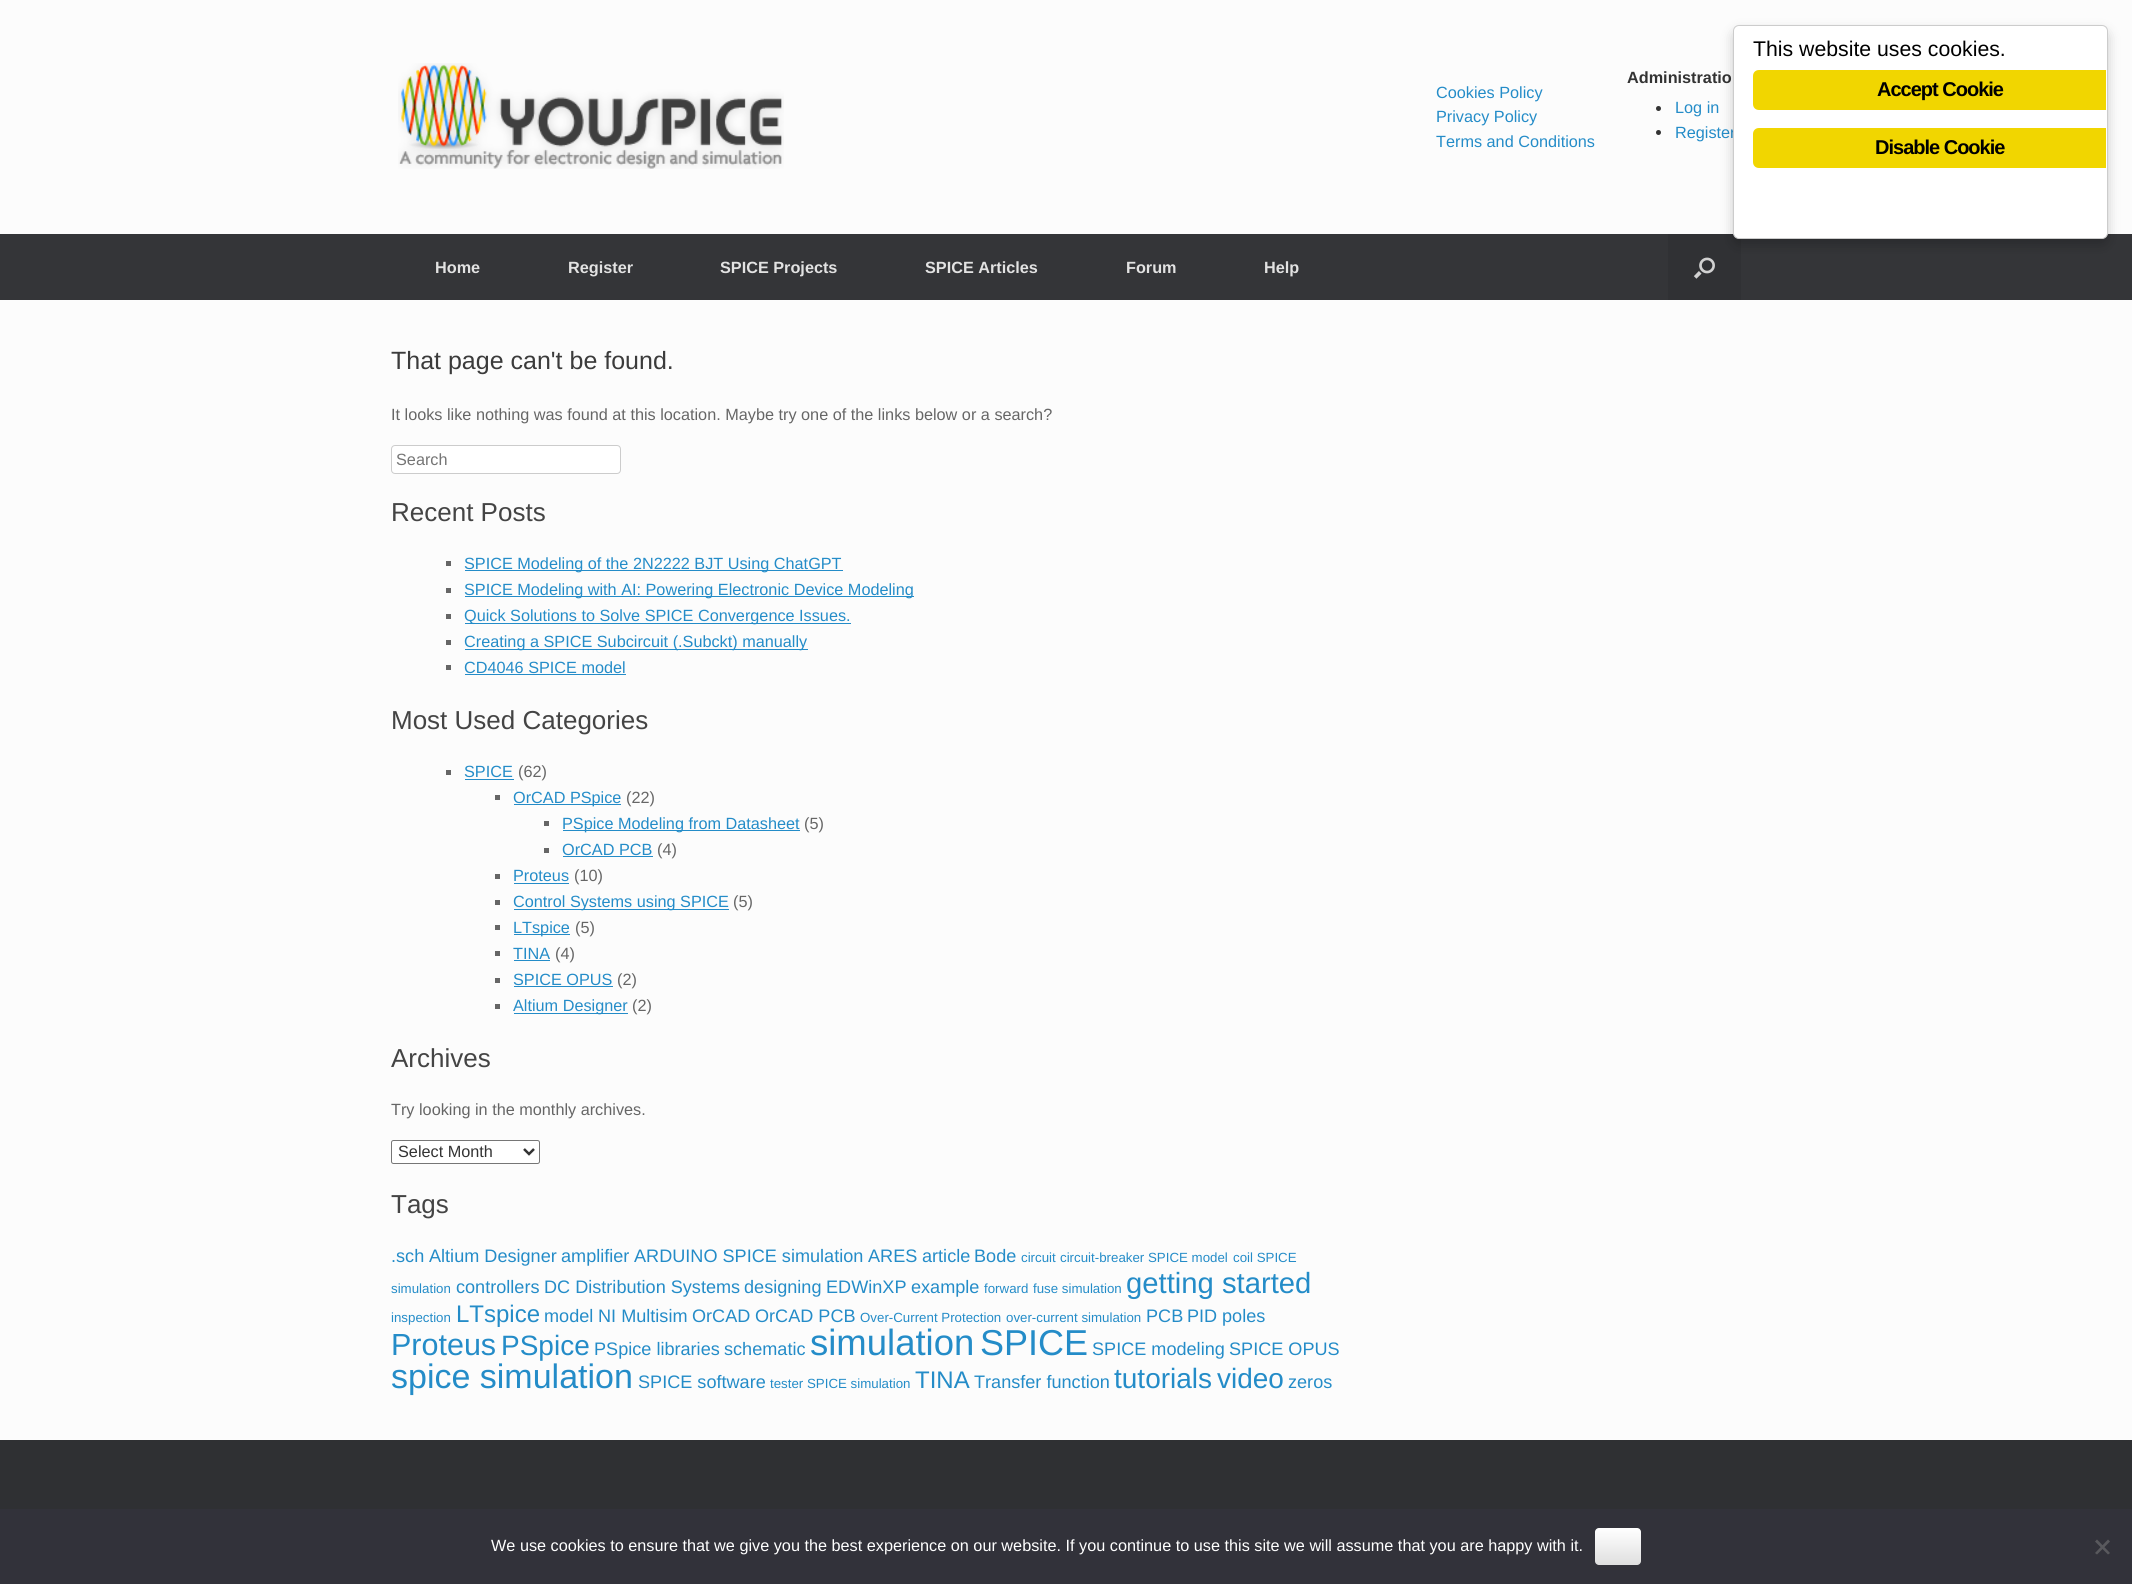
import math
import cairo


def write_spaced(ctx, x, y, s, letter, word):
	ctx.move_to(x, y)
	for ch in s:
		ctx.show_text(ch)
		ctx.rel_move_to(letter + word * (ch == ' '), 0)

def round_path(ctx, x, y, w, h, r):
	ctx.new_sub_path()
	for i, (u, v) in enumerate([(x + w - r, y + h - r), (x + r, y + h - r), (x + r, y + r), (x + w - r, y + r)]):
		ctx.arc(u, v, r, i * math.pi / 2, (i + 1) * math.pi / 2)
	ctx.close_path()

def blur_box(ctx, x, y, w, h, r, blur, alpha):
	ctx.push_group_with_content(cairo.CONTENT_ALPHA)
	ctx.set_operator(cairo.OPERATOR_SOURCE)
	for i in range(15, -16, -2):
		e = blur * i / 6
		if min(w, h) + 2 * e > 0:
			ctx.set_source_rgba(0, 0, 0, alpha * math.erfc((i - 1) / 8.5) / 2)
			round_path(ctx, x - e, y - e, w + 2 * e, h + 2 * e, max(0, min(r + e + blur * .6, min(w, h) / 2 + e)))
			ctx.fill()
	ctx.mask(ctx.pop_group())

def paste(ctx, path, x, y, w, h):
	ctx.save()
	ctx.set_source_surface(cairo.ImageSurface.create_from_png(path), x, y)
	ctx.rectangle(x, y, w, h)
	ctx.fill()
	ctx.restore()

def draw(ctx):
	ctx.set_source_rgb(0.184, 0.188, 0.2)
	ctx.paint()
	ctx.set_source_rgb(0.988, 0.988, 0.988)
	ctx.rectangle(0, 0, 2132, 234)
	ctx.fill()
	paste(ctx, 'media/1.png', 398, 63, 386, 106)
	ctx.select_font_face('Liberation Sans')
	ctx.set_font_size(16.25)
	ctx.set_source_rgb(0.141, 0.549, 0.784)
	for x, y, s in [
		(1436, 98, 'Cookies Policy'),
		(1436, 122, 'Privacy Policy'),
		(1436, 147, 'Terms and Conditions'),
	]:
		ctx.move_to(x, y)
		ctx.show_text(s)
	ctx.select_font_face('Liberation Sans', cairo.FONT_SLANT_NORMAL, cairo.FONT_WEIGHT_BOLD)
	ctx.set_source_rgb(0.2, 0.2, 0.2)
	ctx.move_to(1627, 83)
	ctx.show_text('Administratio')
	ctx.new_path()
	ctx.arc(1658.5, 108.5, 2.5, 0, 2 * math.pi)
	ctx.fill()
	ctx.select_font_face('Liberation Sans')
	ctx.set_source_rgb(0.141, 0.549, 0.784)
	ctx.move_to(1675, 113)
	ctx.show_text('Log in')
	ctx.set_source_rgb(0.2, 0.2, 0.2)
	ctx.new_path()
	ctx.arc(1658.5, 132.5, 2.5, 0, 2 * math.pi)
	ctx.fill()
	ctx.set_source_rgb(0.141, 0.549, 0.784)
	ctx.move_to(1675, 138)
	ctx.show_text('Register')
	ctx.set_source_rgb(0.204, 0.208, 0.22)
	ctx.rectangle(0, 234, 2132, 66)
	ctx.fill()
	ctx.select_font_face('Liberation Sans', cairo.FONT_SLANT_NORMAL, cairo.FONT_WEIGHT_BOLD)
	ctx.set_source_rgb(0.886, 0.886, 0.886)
	for x, y, s in [
		(435, 273, 'Home'),
		(568, 273, 'Register'),
		(720, 273, 'SPICE Projects'),
		(925, 273, 'SPICE Articles'),
		(1126, 273, 'Forum'),
		(1264, 273, 'Help'),
	]:
		ctx.move_to(x, y)
		ctx.show_text(s)
	ctx.set_source_rgb(0.188, 0.192, 0.204)
	ctx.rectangle(1668, 234, 73, 66)
	ctx.fill()
	paste(ctx, 'media/2.png', 1693, 257, 22, 22)
	ctx.set_source_rgb(0.988, 0.988, 0.988)
	ctx.rectangle(0, 300, 2132, 1140)
	ctx.fill()
	ctx.select_font_face('Liberation Sans')
	ctx.set_font_size(25)
	ctx.set_source_rgb(0.231, 0.231, 0.231)
	ctx.move_to(391, 369)
	ctx.show_text('That page can\'t be found.')
	ctx.set_font_size(16.25)
	ctx.set_source_rgb(0.4, 0.4, 0.4)
	ctx.move_to(391, 420)
	ctx.show_text('It looks like nothing was found at this location. Maybe try one of the links below or a search?')
	ctx.set_source_rgb(1, 1, 1)
	round_path(ctx, 391.5, 445.5, 229, 28, 3.5)
	ctx.fill_preserve()
	ctx.set_source_rgb(0.8, 0.8, 0.8)
	ctx.set_line_width(1)
	ctx.stroke()
	ctx.set_source_rgb(0.459, 0.459, 0.459)
	ctx.move_to(396, 465)
	ctx.show_text('Search')
	ctx.set_font_size(26)
	ctx.set_source_rgb(0.267, 0.267, 0.267)
	ctx.move_to(391, 521)
	ctx.show_text('Recent Posts')
	ctx.set_source_rgb(0.4, 0.4, 0.4)
	ctx.rectangle(446, 561, 5, 5)
	ctx.fill()
	ctx.set_source_rgb(0.141, 0.549, 0.784)
	ctx.rectangle(465, 570, 378, 1)
	ctx.fill()
	ctx.set_font_size(16.25)
	ctx.move_to(464, 569)
	ctx.show_text('SPICE Modeling of the 2N2222 BJT Using ChatGPT')
	ctx.set_source_rgb(0.4, 0.4, 0.4)
	ctx.rectangle(446, 588, 5, 5)
	ctx.fill()
	ctx.set_source_rgb(0.141, 0.549, 0.784)
	ctx.rectangle(465, 596, 449, 1)
	ctx.fill()
	ctx.move_to(464, 595)
	ctx.show_text('SPICE Modeling with AI: Powering Electronic Device Modeling')
	ctx.set_source_rgb(0.4, 0.4, 0.4)
	ctx.rectangle(446, 614, 5, 5)
	ctx.fill()
	ctx.set_source_rgb(0.141, 0.549, 0.784)
	ctx.rectangle(465, 623, 386, 1)
	ctx.fill()
	ctx.move_to(464, 621)
	ctx.show_text('Quick Solutions to Solve SPICE Convergence Issues.')
	ctx.set_source_rgb(0.4, 0.4, 0.4)
	ctx.rectangle(446, 640, 5, 5)
	ctx.fill()
	ctx.set_source_rgb(0.141, 0.549, 0.784)
	ctx.rectangle(465, 649, 343, 1)
	ctx.fill()
	ctx.move_to(464, 647)
	ctx.show_text('Creating a SPICE Subcircuit (.Subckt) manually')
	ctx.set_source_rgb(0.4, 0.4, 0.4)
	ctx.rectangle(446, 665, 5, 5)
	ctx.fill()
	ctx.set_source_rgb(0.141, 0.549, 0.784)
	ctx.move_to(464, 673)
	ctx.show_text('CD4046 SPICE model')
	ctx.rectangle(465, 674, 161, 1)
	ctx.fill()
	ctx.set_font_size(26)
	ctx.set_source_rgb(0.267, 0.267, 0.267)
	ctx.move_to(391, 729)
	ctx.show_text('Most Used Categories')
	ctx.set_source_rgb(0.4, 0.4, 0.4)
	ctx.rectangle(446, 770, 5, 5)
	ctx.fill()
	ctx.set_font_size(16.25)
	ctx.set_source_rgb(0.141, 0.549, 0.784)
	ctx.move_to(464, 777)
	ctx.show_text('SPICE')
	ctx.rectangle(465, 779, 49, 1)
	ctx.fill()
	ctx.set_source_rgb(0.4, 0.4, 0.4)
	ctx.move_to(518, 777)
	ctx.show_text('(62)')
	ctx.rectangle(495, 795, 5, 5)
	ctx.fill()
	ctx.set_source_rgb(0.141, 0.549, 0.784)
	ctx.rectangle(514, 804, 107, 1)
	ctx.fill()
	ctx.move_to(513, 803)
	ctx.show_text('OrCAD PSpice')
	ctx.set_source_rgb(0.4, 0.4, 0.4)
	ctx.move_to(626, 803)
	ctx.show_text('(22)')
	ctx.rectangle(544, 821, 5, 5)
	ctx.fill()
	ctx.set_source_rgb(0.141, 0.549, 0.784)
	ctx.rectangle(563, 830, 237, 1)
	ctx.fill()
	ctx.move_to(562, 829)
	ctx.show_text('PSpice Modeling from Datasheet')
	ctx.set_source_rgb(0.4, 0.4, 0.4)
	ctx.move_to(804, 829)
	ctx.show_text('(5)')
	ctx.rectangle(544, 848, 5, 5)
	ctx.fill()
	ctx.set_source_rgb(0.141, 0.549, 0.784)
	ctx.move_to(562, 855)
	ctx.show_text('OrCAD PCB')
	ctx.rectangle(563, 856, 90, 1)
	ctx.fill()
	ctx.set_source_rgb(0.4, 0.4, 0.4)
	ctx.move_to(657, 855)
	ctx.show_text('(4)')
	ctx.rectangle(495, 874, 5, 5)
	ctx.fill()
	ctx.set_source_rgb(0.141, 0.549, 0.784)
	ctx.move_to(513, 881)
	ctx.show_text('Proteus')
	ctx.rectangle(514, 883, 55, 1)
	ctx.fill()
	ctx.set_source_rgb(0.4, 0.4, 0.4)
	ctx.move_to(574, 881)
	ctx.show_text('(10)')
	ctx.rectangle(495, 900, 5, 5)
	ctx.fill()
	ctx.set_source_rgb(0.141, 0.549, 0.784)
	ctx.rectangle(514, 909, 215, 1)
	ctx.fill()
	ctx.move_to(513, 907)
	ctx.show_text('Control Systems using SPICE')
	ctx.set_source_rgb(0.4, 0.4, 0.4)
	ctx.move_to(733, 907)
	ctx.show_text('(5)')
	ctx.rectangle(495, 925, 5, 5)
	ctx.fill()
	ctx.set_source_rgb(0.141, 0.549, 0.784)
	ctx.rectangle(514, 934, 56, 1)
	ctx.fill()
	ctx.move_to(513, 933)
	ctx.show_text('LTspice')
	ctx.set_source_rgb(0.4, 0.4, 0.4)
	ctx.move_to(575, 933)
	ctx.show_text('(5)')
	ctx.rectangle(495, 951, 5, 5)
	ctx.fill()
	ctx.set_source_rgb(0.141, 0.549, 0.784)
	ctx.move_to(513, 959)
	ctx.show_text('TINA')
	ctx.rectangle(514, 960, 36, 1)
	ctx.fill()
	ctx.set_source_rgb(0.4, 0.4, 0.4)
	ctx.move_to(555, 959)
	ctx.show_text('(4)')
	ctx.rectangle(495, 978, 5, 5)
	ctx.fill()
	ctx.set_source_rgb(0.141, 0.549, 0.784)
	ctx.move_to(513, 985)
	ctx.show_text('SPICE OPUS')
	ctx.rectangle(514, 986, 99, 1)
	ctx.fill()
	ctx.set_source_rgb(0.4, 0.4, 0.4)
	ctx.move_to(617, 985)
	ctx.show_text('(2)')
	ctx.rectangle(495, 1004, 5, 5)
	ctx.fill()
	ctx.set_source_rgb(0.141, 0.549, 0.784)
	ctx.rectangle(514, 1013, 114, 1)
	ctx.fill()
	ctx.move_to(513, 1011)
	ctx.show_text('Altium Designer')
	ctx.set_source_rgb(0.4, 0.4, 0.4)
	ctx.move_to(632, 1011)
	ctx.show_text('(2)')
	ctx.set_font_size(26)
	ctx.set_source_rgb(0.267, 0.267, 0.267)
	ctx.move_to(391, 1067)
	ctx.show_text('Archives')
	ctx.set_font_size(16.25)
	ctx.set_source_rgb(0.4, 0.4, 0.4)
	ctx.move_to(391, 1115)
	ctx.show_text('Try looking in the monthly archives.')
	ctx.set_source_rgb(1, 1, 1)
	round_path(ctx, 391.5, 1140.5, 148, 23, 2)
	ctx.fill_preserve()
	ctx.set_source_rgb(0.463, 0.463, 0.463)
	ctx.stroke()
	ctx.new_path()
	ctx.move_to(524, 1149)
	ctx.line_to(529, 1154)
	ctx.line_to(534, 1149)
	ctx.set_source_rgb(0.2, 0.2, 0.2)
	ctx.set_line_width(2.5)
	ctx.stroke()
	ctx.move_to(398, 1157)
	ctx.show_text('Select Month')
	ctx.set_font_size(26)
	ctx.set_source_rgb(0.267, 0.267, 0.267)
	ctx.move_to(391, 1213)
	ctx.show_text('Tags')
	ctx.set_font_size(18.1)
	ctx.set_source_rgb(0.141, 0.549, 0.784)
	for x, y, s in [
		(391, 1262, '.sch'),
		(429, 1262, 'Altium Designer'),
		(561, 1262, 'amplifier'),
		(634, 1262, 'ARDUINO SPICE simulation'),
		(868, 1262, 'ARES'),
		(922, 1262, 'article'),
		(974, 1262, 'Bode'),
	]:
		ctx.move_to(x, y)
		ctx.show_text(s)
	ctx.set_font_size(13.3)
	for x, y, s in [
		(1021, 1262, 'circuit'),
		(1060, 1262, 'circuit-breaker SPICE model'),
		(1233, 1262, 'coil SPICE'),
		(391, 1293, 'simulation'),
	]:
		ctx.move_to(x, y)
		ctx.show_text(s)
	ctx.set_font_size(18.1)
	for x, y, s in [
		(456, 1293, 'controllers'),
		(544, 1293, 'DC Distribution Systems'),
		(744, 1293, 'designing'),
		(826, 1293, 'EDWinXP'),
		(911, 1293, 'example'),
	]:
		ctx.move_to(x, y)
		ctx.show_text(s)
	ctx.set_font_size(13.3)
	ctx.move_to(984, 1293)
	ctx.show_text('forward')
	ctx.move_to(1033, 1293)
	ctx.show_text('fuse simulation')
	ctx.set_font_size(29.25)
	ctx.move_to(1126, 1293)
	ctx.show_text('getting started')
	ctx.set_font_size(13.3)
	ctx.move_to(391, 1322)
	ctx.show_text('inspection')
	ctx.set_font_size(24)
	ctx.move_to(456, 1322)
	ctx.show_text('LTspice')
	ctx.set_font_size(18.1)
	for x, y, s in [
		(544, 1322, 'model'),
		(598, 1322, 'NI Multisim'),
		(692, 1322, 'OrCAD'),
		(755, 1322, 'OrCAD PCB'),
	]:
		ctx.move_to(x, y)
		ctx.show_text(s)
	ctx.set_font_size(13.3)
	ctx.move_to(860, 1322)
	ctx.show_text('Over-Current Protection')
	ctx.move_to(1006, 1322)
	ctx.show_text('over-current simulation')
	ctx.set_font_size(18.1)
	for x, y, s in [
		(1146, 1322, 'PCB'),
		(1187, 1322, 'PID'),
		(1222, 1322, 'poles'),
	]:
		ctx.move_to(x, y)
		ctx.show_text(s)
	ctx.set_font_size(30.5)
	ctx.move_to(391, 1355)
	ctx.show_text('Proteus')
	ctx.set_font_size(28)
	ctx.move_to(501, 1355)
	ctx.show_text('PSpice')
	ctx.set_font_size(18.1)
	ctx.move_to(594, 1355)
	ctx.show_text('PSpice libraries')
	ctx.move_to(724, 1355)
	ctx.show_text('schematic')
	ctx.set_font_size(36.5)
	ctx.move_to(810, 1355)
	ctx.show_text('simulation')
	ctx.set_font_size(36)
	ctx.move_to(980, 1355)
	ctx.show_text('SPICE')
	ctx.set_font_size(18.1)
	ctx.move_to(1092, 1355)
	ctx.show_text('SPICE modeling')
	ctx.move_to(1229, 1355)
	ctx.show_text('SPICE OPUS')
	ctx.set_font_size(34)
	ctx.move_to(391, 1388)
	ctx.show_text('spice simulation')
	ctx.set_font_size(18.1)
	ctx.move_to(638, 1388)
	ctx.show_text('SPICE software')
	ctx.set_font_size(13.3)
	ctx.move_to(770, 1388)
	ctx.show_text('tester SPICE simulation')
	ctx.set_font_size(24)
	ctx.move_to(915, 1388)
	ctx.show_text('TINA')
	ctx.set_font_size(18.1)
	ctx.move_to(974, 1388)
	ctx.show_text('Transfer function')
	ctx.set_font_size(28)
	ctx.move_to(1114, 1388)
	ctx.show_text('tutorials')
	ctx.move_to(1217, 1388)
	ctx.show_text('video')
	ctx.set_font_size(18.1)
	ctx.move_to(1288, 1388)
	ctx.show_text('zeros')
	ctx.set_source_rgb(0, 0, 0)
	blur_box(ctx, 1733, 31, 375, 214, 6, 6, 0.2)
	ctx.set_source_rgb(1, 1, 1)
	round_path(ctx, 1733.5, 25.5, 374, 213, 5.5)
	ctx.fill_preserve()
	ctx.set_source_rgb(0.8, 0.8, 0.8)
	ctx.set_line_width(1)
	ctx.stroke()
	ctx.set_font_size(21.25)
	ctx.set_source_rgb(0, 0, 0)
	ctx.move_to(1753, 56)
	ctx.show_text('This website uses cookies.')
	ctx.set_source_rgb(0.945, 0.839, 0)
	ctx.new_path()
	ctx.move_to(1759, 70)
	ctx.line_to(2106, 70)
	ctx.line_to(2106, 110)
	ctx.line_to(1759, 110)
	ctx.curve_to(1755.5, 110, 1753, 107.5, 1753, 104)
	ctx.line_to(1753, 76)
	ctx.curve_to(1753, 72.5, 1755.5, 70, 1759, 70)
	ctx.close_path()
	ctx.fill()
	ctx.select_font_face('Liberation Sans', cairo.FONT_SLANT_NORMAL, cairo.FONT_WEIGHT_BOLD)
	ctx.set_font_size(20)
	ctx.set_source_rgb(0, 0, 0)
	write_spaced(ctx, 1877, 96, 'Accept Cookie', -1, 0)
	ctx.set_source_rgb(0.945, 0.839, 0)
	ctx.new_path()
	ctx.move_to(1759, 128)
	ctx.line_to(2106, 128)
	ctx.line_to(2106, 168)
	ctx.line_to(1759, 168)
	ctx.curve_to(1755.5, 168, 1753, 165.5, 1753, 162)
	ctx.line_to(1753, 134)
	ctx.curve_to(1753, 130.5, 1755.5, 128, 1759, 128)
	ctx.close_path()
	ctx.fill()
	ctx.set_source_rgb(0, 0, 0)
	write_spaced(ctx, 1875, 154, 'Disable Cookie', -1, 0)
	ctx.set_source_rgb(0.196, 0.196, 0.227)
	ctx.rectangle(0, 1509, 2132, 75)
	ctx.fill()
	ctx.select_font_face('Liberation Sans')
	ctx.set_font_size(16.25)
	ctx.set_source_rgb(1, 1, 1)
	ctx.move_to(491, 1551)
	ctx.show_text('We use cookies to ensure that we give you the best experience on our website. If you continue to use this site we will assume that you are happy with it.')
	gradient = cairo.LinearGradient(1595, 1565, 1595, 1528)
	gradient.add_color_stop_rgba(0, 0.875, 0.875, 0.875, 1)
	gradient.add_color_stop_rgba(1, 1, 1, 1, 1)
	ctx.set_source(gradient)
	round_path(ctx, 1595, 1528, 46, 37, 4)
	ctx.fill()
	ctx.set_source_rgb(0.349, 0.349, 0.365)
	ctx.new_path()
	ctx.move_to(2108, 1539.5)
	ctx.line_to(2110, 1541.5)
	ctx.line_to(2097, 1554.5)
	ctx.line_to(2095, 1553)
	ctx.close_path()
	ctx.fill()
	ctx.new_path()
	ctx.move_to(2095, 1541.5)
	ctx.line_to(2097, 1539.5)
	ctx.line_to(2110, 1553)
	ctx.line_to(2108, 1554.5)
	ctx.close_path()
	ctx.fill()


surface = cairo.ImageSurface(cairo.FORMAT_RGB24, 2132, 1584)
ctx = cairo.Context(surface)
options = cairo.FontOptions()
options.set_hint_metrics(cairo.HINT_METRICS_OFF)
options.set_hint_style(cairo.HINT_STYLE_NONE)
ctx.set_font_options(options)
ctx.set_miter_limit(4)
draw(ctx)
surface.write_to_png('image.png')
